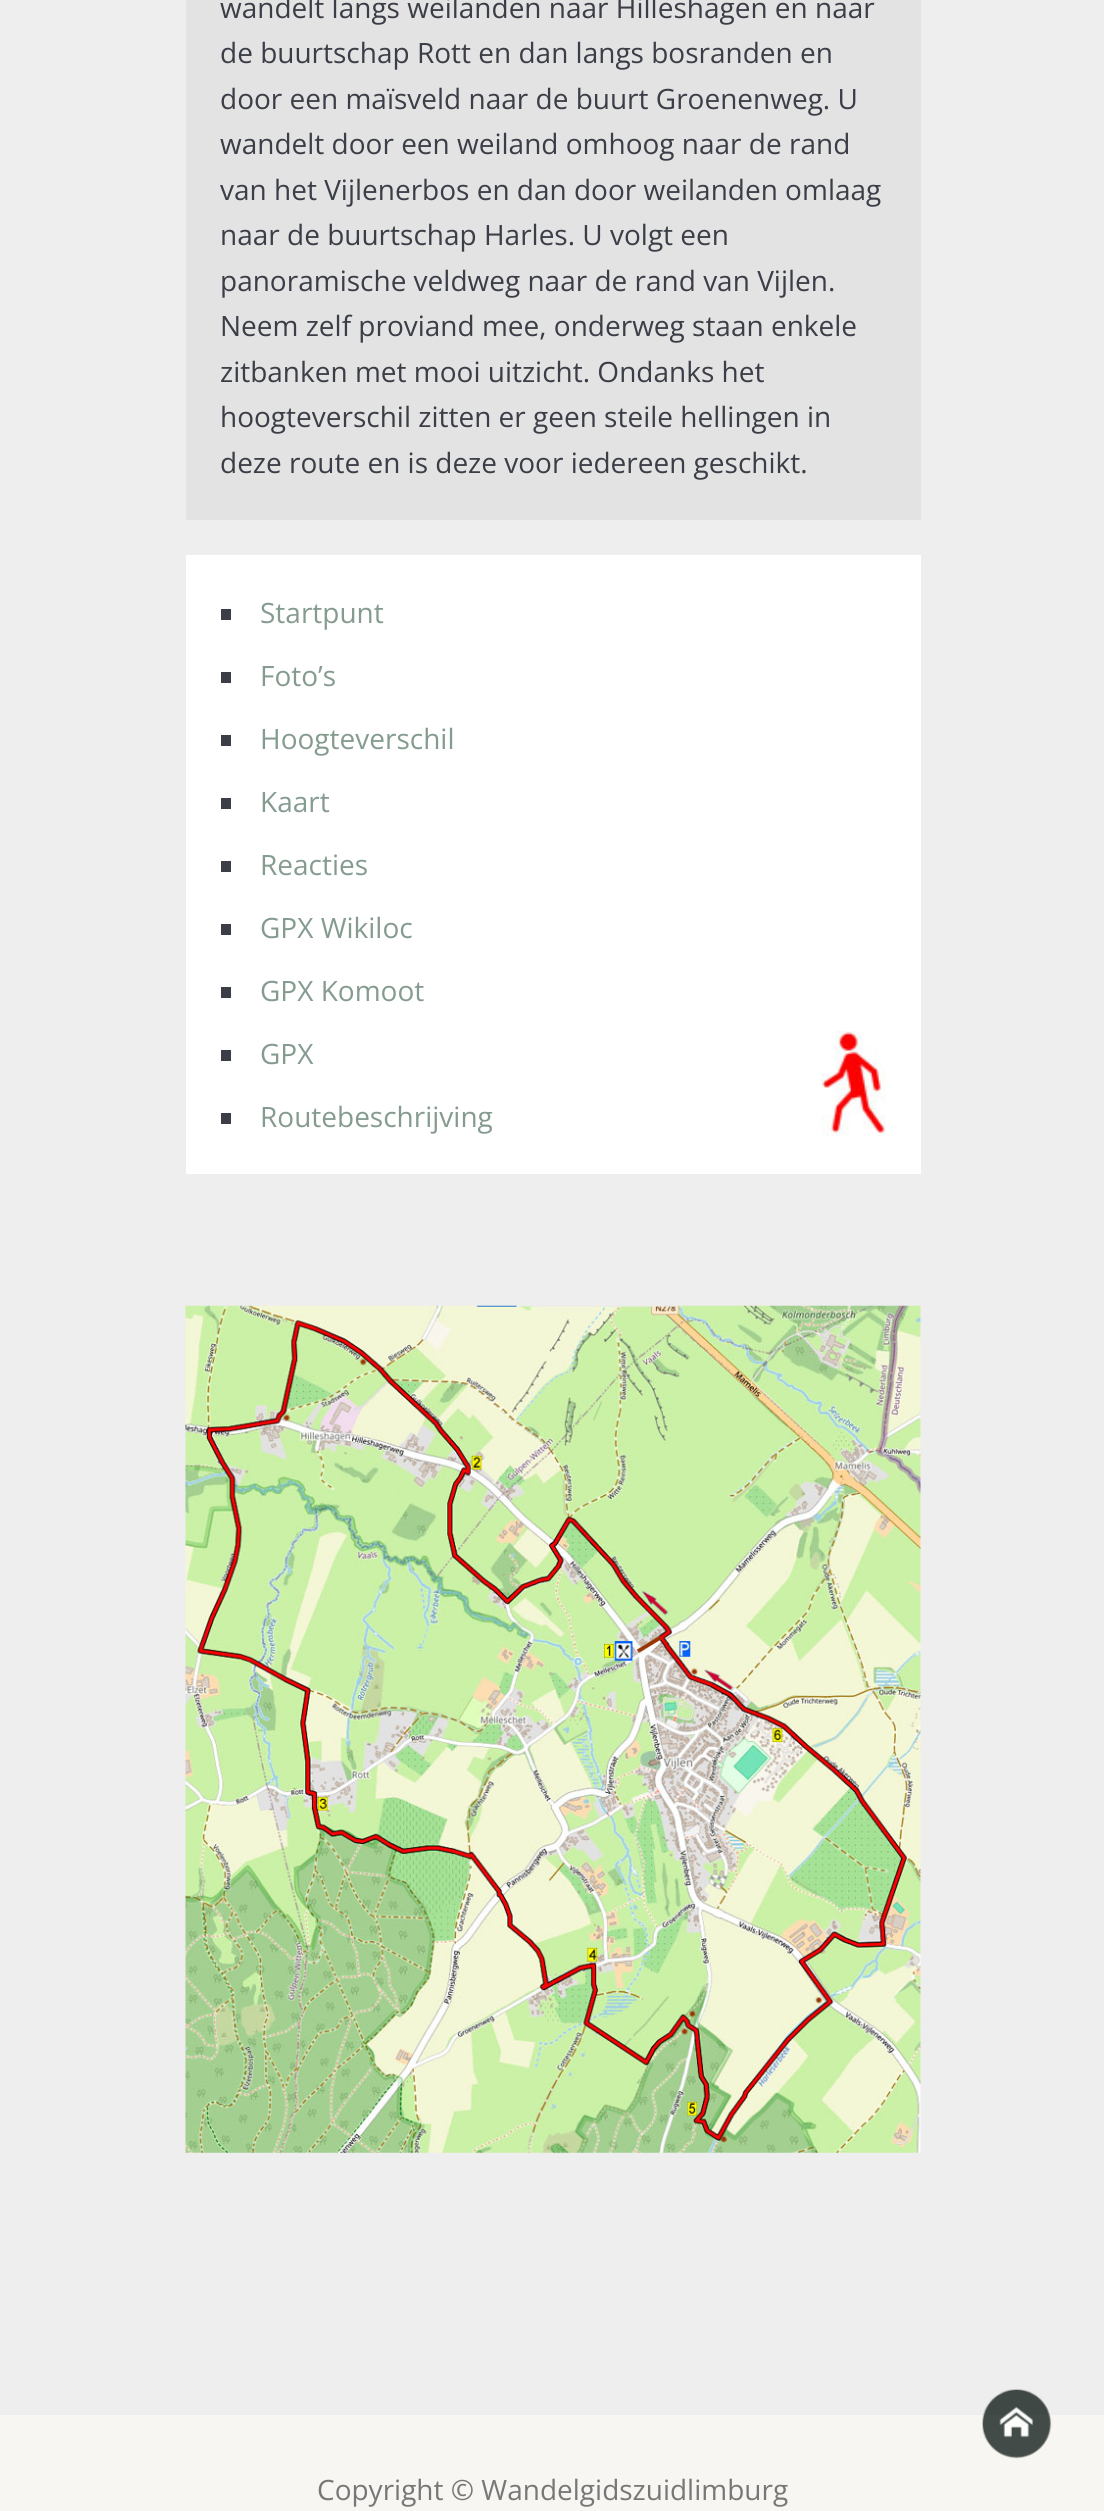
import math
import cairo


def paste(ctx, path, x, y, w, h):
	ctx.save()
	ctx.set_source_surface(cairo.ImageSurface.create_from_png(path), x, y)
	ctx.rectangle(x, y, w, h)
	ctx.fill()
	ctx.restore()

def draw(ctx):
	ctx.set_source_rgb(0.933, 0.933, 0.933)
	ctx.paint()
	ctx.set_source_rgb(0.89, 0.89, 0.89)
	ctx.rectangle(186, 0, 735, 520)
	ctx.fill()
	ctx.select_font_face('Open Sans')
	ctx.set_font_size(28)
	ctx.set_source_rgb(0.231, 0.243, 0.278)
	for x, y, s in [
		(220, 18, 'wandelt langs weilanden naar Hilleshagen en naar'),
		(220, 63, 'de buurtschap Rott en dan langs bosranden en'),
		(220, 109, 'door een maïsveld naar de buurt Groenenweg. U'),
		(220, 154, 'wandelt door een weiland omhoog naar de rand'),
		(220, 200, 'van het Vijlenerbos en dan door weilanden omlaag'),
		(220, 245, 'naar de buurtschap Harles. U volgt een'),
		(220, 291, 'panoramische veldweg naar de rand van Vijlen.'),
		(220, 336, 'Neem zelf proviand mee, onderweg staan enkele'),
		(220, 382, 'zitbanken met mooi uitzicht. Ondanks het'),
		(220, 427, 'hoogteverschil zitten er geen steile hellingen in'),
		(220, 473, 'deze route en is deze voor iedereen geschikt.'),
	]:
		ctx.move_to(x, y)
		ctx.show_text(s)
	ctx.set_source_rgb(1, 1, 1)
	ctx.rectangle(186, 555, 735, 619)
	ctx.fill()
	ctx.set_source_rgb(0.231, 0.243, 0.278)
	ctx.rectangle(221, 609, 10, 11)
	ctx.fill()
	ctx.set_source_rgb(0.522, 0.608, 0.561)
	ctx.move_to(260, 623)
	ctx.show_text('Startpunt')
	ctx.set_source_rgb(0.231, 0.243, 0.278)
	ctx.rectangle(221, 672, 10, 11)
	ctx.fill()
	ctx.set_source_rgb(0.522, 0.608, 0.561)
	ctx.move_to(260, 686)
	ctx.show_text('Foto’s')
	ctx.set_source_rgb(0.231, 0.243, 0.278)
	ctx.rectangle(221, 735, 10, 11)
	ctx.fill()
	ctx.set_source_rgb(0.522, 0.608, 0.561)
	ctx.move_to(260, 749)
	ctx.show_text('Hoogteverschil')
	ctx.set_source_rgb(0.231, 0.243, 0.278)
	ctx.rectangle(221, 798, 10, 11)
	ctx.fill()
	ctx.set_source_rgb(0.522, 0.608, 0.561)
	ctx.move_to(260, 812)
	ctx.show_text('Kaart')
	ctx.set_source_rgb(0.231, 0.243, 0.278)
	ctx.rectangle(221, 861, 10, 11)
	ctx.fill()
	ctx.set_source_rgb(0.522, 0.608, 0.561)
	ctx.move_to(260, 875)
	ctx.show_text('Reacties')
	ctx.set_source_rgb(0.231, 0.243, 0.278)
	ctx.rectangle(221, 924, 10, 11)
	ctx.fill()
	ctx.set_source_rgb(0.522, 0.608, 0.561)
	ctx.move_to(260, 938)
	ctx.show_text('GPX Wikiloc')
	ctx.set_source_rgb(0.231, 0.243, 0.278)
	ctx.rectangle(221, 987, 10, 11)
	ctx.fill()
	ctx.set_source_rgb(0.522, 0.608, 0.561)
	ctx.move_to(260, 1001)
	ctx.show_text('GPX Komoot')
	ctx.set_source_rgb(0.231, 0.243, 0.278)
	ctx.rectangle(221, 1050, 10, 11)
	ctx.fill()
	ctx.set_source_rgb(0.522, 0.608, 0.561)
	ctx.move_to(260, 1064)
	ctx.show_text('GPX')
	paste(ctx, 'media/1.png', 820, 1031, 66, 105)
	ctx.set_source_rgb(0.231, 0.243, 0.278)
	ctx.rectangle(221, 1113, 10, 11)
	ctx.fill()
	ctx.set_source_rgb(0.522, 0.608, 0.561)
	ctx.move_to(260, 1127)
	ctx.show_text('Routebeschrijving')
	paste(ctx, 'media/2.png', 185, 1305, 736, 848)
	ctx.set_source_rgb(0.969, 0.961, 0.949)
	ctx.rectangle(0, 2415, 1104, 96)
	ctx.fill()
	ctx.set_source_rgb(0.467, 0.467, 0.467)
	ctx.move_to(317, 2500)
	ctx.show_text('Copyright © Wandelgidszuidlimburg')
	paste(ctx, 'media/3.png', 982, 2389, 70, 70)


surface = cairo.ImageSurface(cairo.FORMAT_RGB24, 1104, 2511)
ctx = cairo.Context(surface)
options = cairo.FontOptions()
options.set_hint_metrics(cairo.HINT_METRICS_OFF)
options.set_hint_style(cairo.HINT_STYLE_NONE)
ctx.set_font_options(options)
ctx.set_miter_limit(4)
draw(ctx)
surface.write_to_png('image.png')
